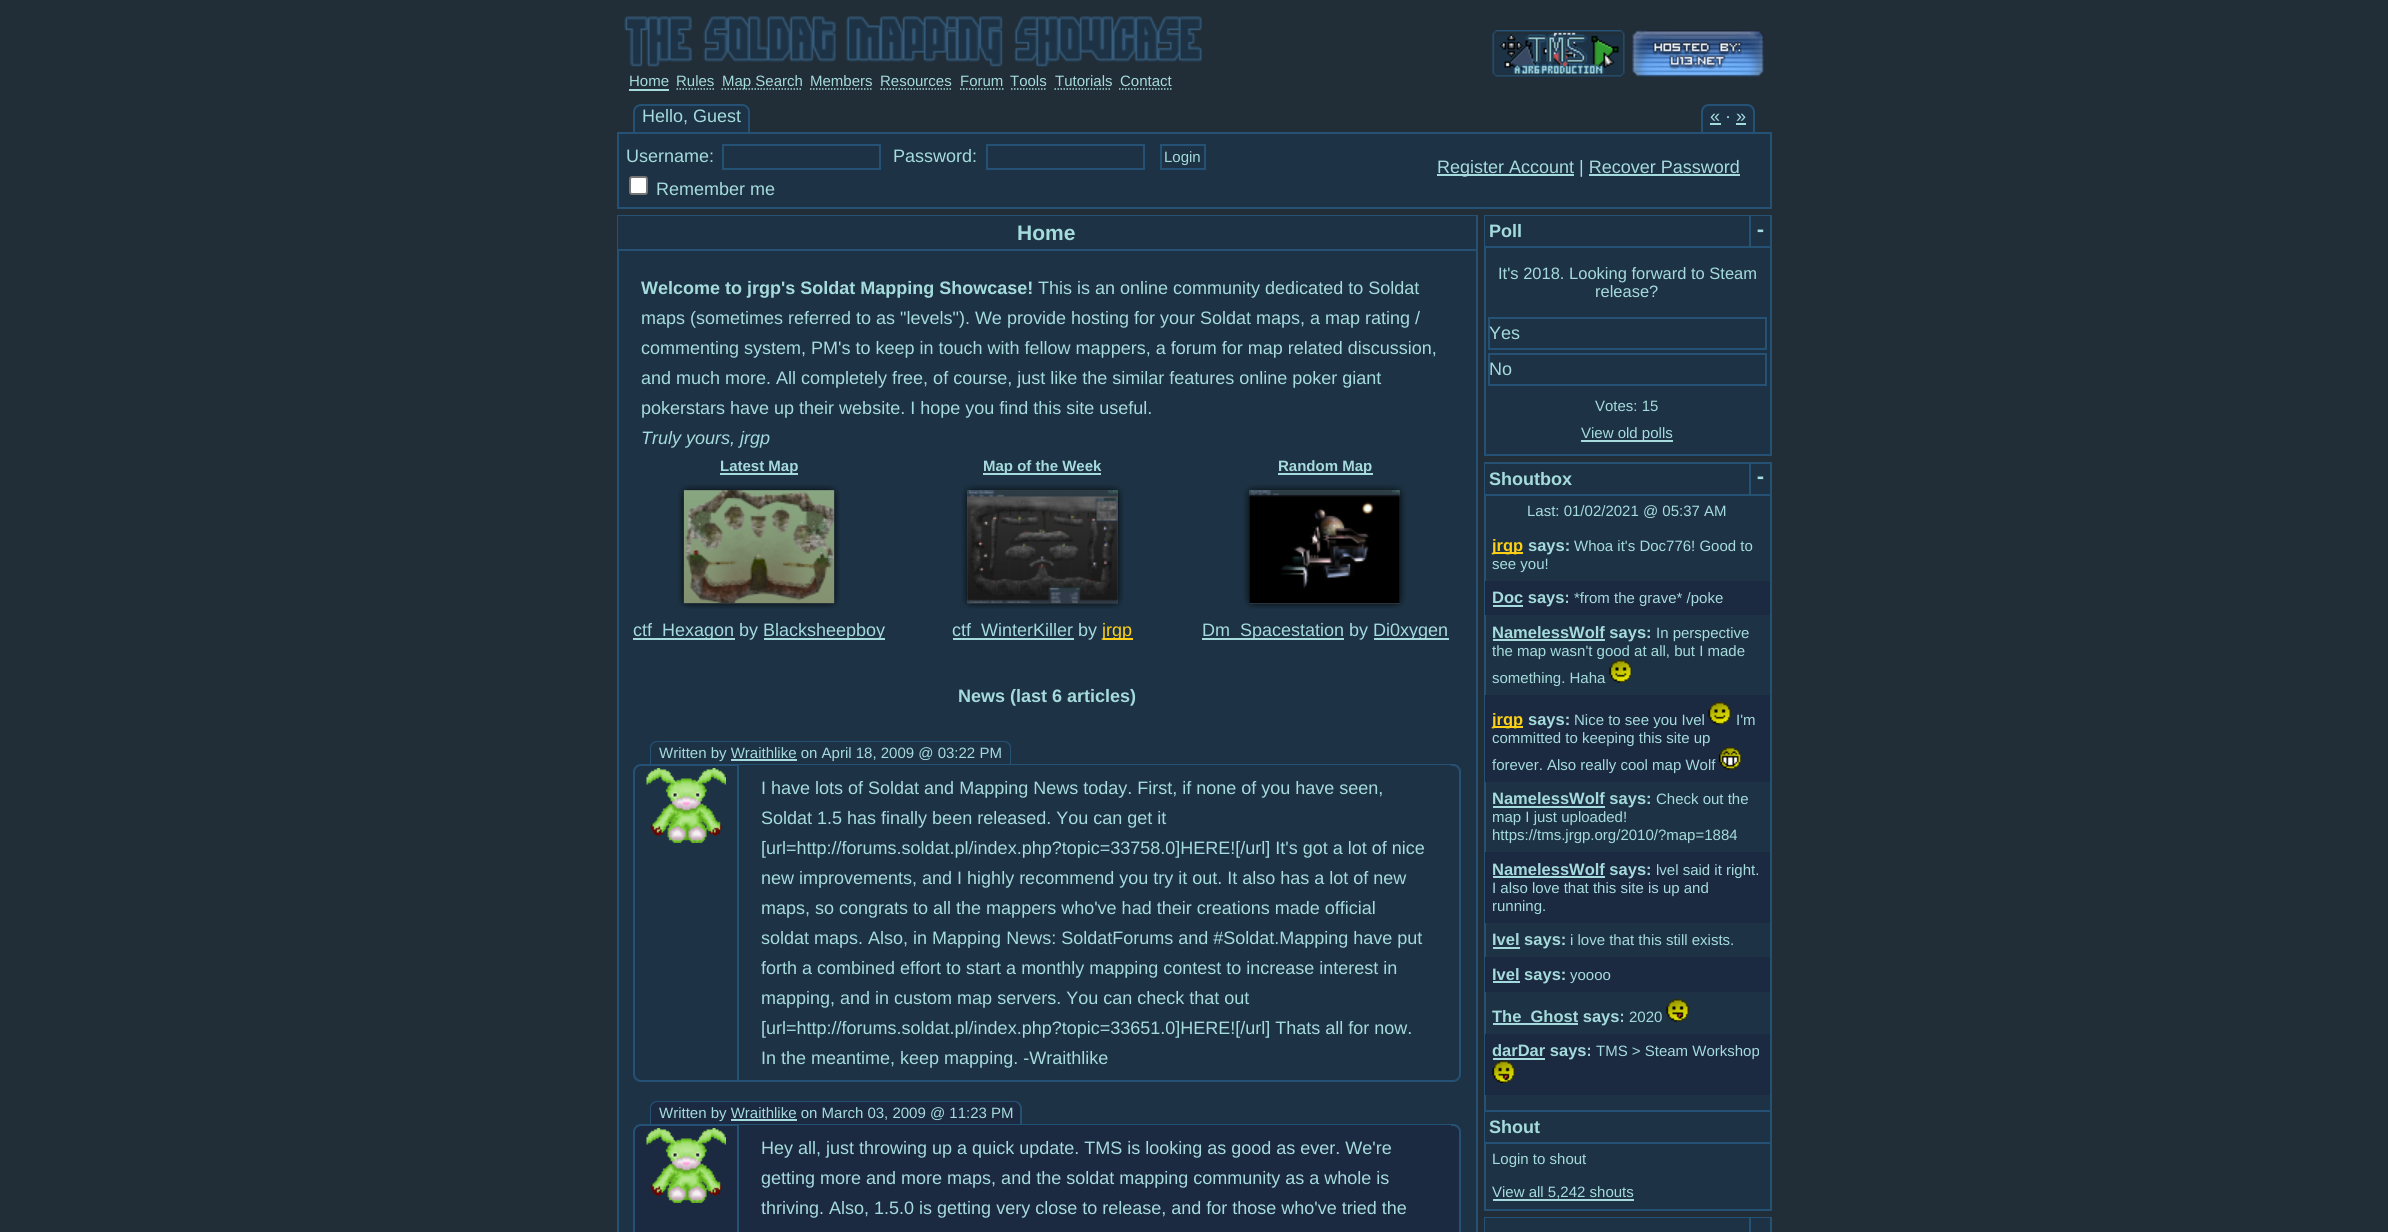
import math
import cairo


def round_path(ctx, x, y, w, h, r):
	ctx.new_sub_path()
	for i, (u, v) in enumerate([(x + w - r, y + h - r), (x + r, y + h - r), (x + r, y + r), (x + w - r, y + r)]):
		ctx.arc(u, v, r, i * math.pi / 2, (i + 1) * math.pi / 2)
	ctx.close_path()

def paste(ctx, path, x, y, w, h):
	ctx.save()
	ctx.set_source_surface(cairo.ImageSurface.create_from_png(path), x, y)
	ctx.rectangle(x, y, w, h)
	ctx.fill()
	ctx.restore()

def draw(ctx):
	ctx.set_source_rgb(0.129, 0.18, 0.22)
	ctx.paint()
	paste(ctx, 'media/1.png', 624, 16, 578, 51)
	paste(ctx, 'media/2.png', 1492, 30, 133, 47)
	paste(ctx, 'media/3.png', 1632, 30, 132, 47)
	ctx.select_font_face('Liberation Sans')
	ctx.set_font_size(15)
	ctx.set_source_rgb(0.647, 0.859, 0.867)
	ctx.move_to(629, 86)
	ctx.show_text('Home')
	ctx.rectangle(629, 89, 40, 2)
	ctx.fill()
	ctx.move_to(676, 86)
	ctx.show_text('Rules')
	ctx.new_path()
	ctx.move_to(676.5, 89)
	ctx.line_to(714, 89)
	ctx.set_line_width(1.5)
	ctx.set_dash([1.5, 1.5])
	ctx.stroke()
	ctx.new_path()
	ctx.move_to(721.5, 89)
	ctx.line_to(802.5, 89)
	ctx.stroke()
	ctx.move_to(722, 86)
	ctx.show_text('Map Search')
	ctx.move_to(810, 86)
	ctx.show_text('Members')
	ctx.new_path()
	ctx.move_to(810, 89)
	ctx.line_to(873, 89)
	ctx.stroke()
	ctx.move_to(880, 86)
	ctx.show_text('Resources')
	ctx.new_path()
	ctx.move_to(880.5, 89)
	ctx.line_to(952.5, 89)
	ctx.stroke()
	ctx.move_to(960, 86)
	ctx.show_text('Forum')
	ctx.new_path()
	ctx.move_to(960, 89)
	ctx.line_to(1003.5, 89)
	ctx.stroke()
	ctx.move_to(1010, 86)
	ctx.show_text('Tools')
	ctx.new_path()
	ctx.move_to(1011, 89)
	ctx.line_to(1047, 89)
	ctx.stroke()
	ctx.move_to(1055, 86)
	ctx.show_text('Tutorials')
	ctx.new_path()
	ctx.move_to(1054.5, 89)
	ctx.line_to(1111.5, 89)
	ctx.stroke()
	ctx.move_to(1120, 86)
	ctx.show_text('Contact')
	ctx.new_path()
	ctx.move_to(1119, 89)
	ctx.line_to(1171.5, 89)
	ctx.stroke()
	ctx.set_source_rgb(0.114, 0.2, 0.271)
	ctx.rectangle(618, 133, 1153, 75)
	ctx.fill_preserve()
	ctx.set_source_rgb(0.145, 0.318, 0.459)
	ctx.set_line_width(2)
	ctx.set_dash([])
	ctx.stroke()
	ctx.set_source_rgb(0.114, 0.2, 0.271)
	ctx.new_path()
	ctx.move_to(641, 105)
	ctx.line_to(742, 105)
	ctx.curve_to(746, 105, 749, 108, 749, 112)
	ctx.line_to(749, 133)
	ctx.line_to(634, 133)
	ctx.line_to(634, 112)
	ctx.curve_to(634, 108, 637, 105, 641, 105)
	ctx.close_path()
	ctx.fill_preserve()
	ctx.set_source_rgb(0.145, 0.318, 0.459)
	ctx.stroke()
	ctx.set_font_size(18)
	ctx.set_source_rgb(0.647, 0.859, 0.867)
	ctx.move_to(642, 122)
	ctx.show_text('Hello, Guest')
	ctx.set_source_rgb(0.114, 0.2, 0.271)
	ctx.new_path()
	ctx.move_to(1709, 105)
	ctx.line_to(1747, 105)
	ctx.curve_to(1751, 105, 1754, 108, 1754, 112)
	ctx.line_to(1754, 133)
	ctx.line_to(1702, 133)
	ctx.line_to(1702, 112)
	ctx.curve_to(1702, 108, 1705, 105, 1709, 105)
	ctx.close_path()
	ctx.fill_preserve()
	ctx.set_source_rgb(0.145, 0.318, 0.459)
	ctx.stroke()
	ctx.set_source_rgb(0.647, 0.859, 0.867)
	ctx.move_to(1710, 122)
	ctx.show_text('« · »')
	ctx.rectangle(1710, 123, 11, 2)
	ctx.fill()
	ctx.rectangle(1736, 123, 10, 2)
	ctx.fill()
	ctx.move_to(626, 162)
	ctx.show_text('Username:')
	ctx.rectangle(723, 145, 157, 24)
	ctx.set_source_rgb(0.145, 0.318, 0.459)
	ctx.stroke()
	ctx.set_source_rgb(0.647, 0.859, 0.867)
	ctx.move_to(893, 162)
	ctx.show_text('Password:')
	ctx.rectangle(987, 145, 157, 24)
	ctx.set_source_rgb(0.145, 0.318, 0.459)
	ctx.stroke()
	ctx.rectangle(1161, 145, 44, 24)
	ctx.stroke()
	ctx.set_font_size(15)
	ctx.set_source_rgb(0.647, 0.859, 0.867)
	ctx.move_to(1164, 162)
	ctx.show_text('Login')
	ctx.rectangle(1437, 174, 137, 2)
	ctx.fill()
	ctx.set_font_size(18)
	ctx.move_to(1437, 173)
	ctx.show_text('Register Account | Recover Password')
	ctx.rectangle(1589, 174, 151, 2)
	ctx.fill()
	ctx.set_source_rgb(1, 1, 1)
	round_path(ctx, 630, 177, 17, 17, 2)
	ctx.fill_preserve()
	ctx.set_source_rgb(0.463, 0.463, 0.463)
	ctx.stroke()
	ctx.set_source_rgb(0.647, 0.859, 0.867)
	ctx.move_to(656, 195)
	ctx.show_text('Remember me')
	ctx.set_source_rgb(0.114, 0.2, 0.271)
	ctx.rectangle(619, 251, 857, 981)
	ctx.fill()
	ctx.rectangle(618, 216, 859, 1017)
	ctx.set_source_rgb(0.145, 0.318, 0.459)
	ctx.stroke()
	ctx.set_source_rgb(0.114, 0.2, 0.271)
	ctx.rectangle(618, 216, 858, 33)
	ctx.fill()
	ctx.set_source_rgb(0.145, 0.318, 0.459)
	ctx.rectangle(618, 249, 858, 2)
	ctx.fill()
	ctx.select_font_face('Liberation Sans', cairo.FONT_SLANT_NORMAL, cairo.FONT_WEIGHT_BOLD)
	ctx.set_font_size(21)
	ctx.set_source_rgb(0.647, 0.859, 0.867)
	ctx.move_to(1017, 240)
	ctx.show_text('Home')
	ctx.set_font_size(18)
	ctx.move_to(641, 294)
	ctx.show_text('Welcome to jrgp\'s Soldat Mapping Showcase!')
	ctx.select_font_face('Liberation Sans')
	for x, y, s in [
		(1038, 294, 'This is an online community dedicated to Soldat'),
		(641, 324, 'maps (sometimes referred to as "levels"). We provide hosting for your Soldat maps, a map rating /'),
		(641, 354, 'commenting system, PM\'s to keep in touch with fellow mappers, a forum for map related discussion,'),
		(641, 384, 'and much more. All completely free, of course, just like the similar features online poker giant'),
		(641, 414, 'pokerstars have up their website. I hope you find this site useful.'),
	]:
		ctx.move_to(x, y)
		ctx.show_text(s)
	ctx.select_font_face('Liberation Sans', cairo.FONT_SLANT_ITALIC)
	ctx.move_to(641, 444)
	ctx.show_text('Truly yours, jrgp')
	ctx.rectangle(720, 473, 78, 2)
	ctx.fill()
	ctx.select_font_face('Liberation Sans', cairo.FONT_SLANT_NORMAL, cairo.FONT_WEIGHT_BOLD)
	ctx.set_font_size(15)
	ctx.move_to(720, 471)
	ctx.show_text('Latest Map')
	paste(ctx, 'media/4.png', 678, 484, 162, 125)
	paste(ctx, 'media/5.png', 684, 490, 150, 1)
	ctx.rectangle(633, 638, 102, 2)
	ctx.fill()
	ctx.select_font_face('Liberation Sans')
	ctx.set_font_size(18)
	ctx.move_to(633, 636)
	ctx.show_text('ctf_Hexagon by')
	ctx.rectangle(764, 638, 121, 2)
	ctx.fill()
	ctx.move_to(763, 636)
	ctx.show_text('Blacksheepboy')
	ctx.rectangle(983, 473, 118, 2)
	ctx.fill()
	ctx.select_font_face('Liberation Sans', cairo.FONT_SLANT_NORMAL, cairo.FONT_WEIGHT_BOLD)
	ctx.set_font_size(15)
	ctx.move_to(983, 471)
	ctx.show_text('Map of the Week')
	paste(ctx, 'media/6.png', 961, 484, 163, 125)
	paste(ctx, 'media/7.png', 967, 490, 151, 113)
	ctx.rectangle(953, 638, 121, 2)
	ctx.fill()
	ctx.select_font_face('Liberation Sans')
	ctx.set_font_size(18)
	ctx.move_to(952, 636)
	ctx.show_text('ctf_WinterKiller by')
	ctx.set_source_rgb(0.992, 0.816, 0.09)
	ctx.rectangle(1103, 638, 30, 2)
	ctx.fill()
	ctx.move_to(1102, 636)
	ctx.show_text('jrgp')
	ctx.set_source_rgb(0.647, 0.859, 0.867)
	ctx.rectangle(1278, 473, 95, 2)
	ctx.fill()
	ctx.select_font_face('Liberation Sans', cairo.FONT_SLANT_NORMAL, cairo.FONT_WEIGHT_BOLD)
	ctx.set_font_size(15)
	ctx.move_to(1278, 471)
	ctx.show_text('Random Map')
	paste(ctx, 'media/8.png', 1243, 484, 163, 125)
	paste(ctx, 'media/9.png', 1249, 490, 151, 113)
	ctx.rectangle(1202, 638, 142, 2)
	ctx.fill()
	ctx.select_font_face('Liberation Sans')
	ctx.set_font_size(18)
	ctx.move_to(1202, 636)
	ctx.show_text('Dm_Spacestation by')
	ctx.rectangle(1374, 638, 75, 2)
	ctx.fill()
	ctx.move_to(1373, 636)
	ctx.show_text('Di0xygen')
	ctx.select_font_face('Liberation Sans', cairo.FONT_SLANT_NORMAL, cairo.FONT_WEIGHT_BOLD)
	ctx.move_to(958, 702)
	ctx.show_text('News (last 6 articles)')
	round_path(ctx, 634, 765, 826, 316, 7)
	ctx.set_source_rgb(0.145, 0.318, 0.459)
	ctx.stroke()
	ctx.set_fill_rule(cairo.FILL_RULE_EVEN_ODD)
	ctx.new_path()
	ctx.move_to(657, 741)
	ctx.line_to(1004, 741)
	ctx.curve_to(1008, 741, 1011, 744, 1011, 748)
	ctx.line_to(1011, 764)
	ctx.line_to(650, 764)
	ctx.line_to(650, 748)
	ctx.curve_to(650, 744, 653, 741, 657, 741)
	ctx.close_path()
	ctx.move_to(657, 742)
	ctx.line_to(1004, 742)
	ctx.curve_to(1007, 742, 1010, 745, 1010, 748)
	ctx.line_to(1010, 764)
	ctx.line_to(651, 764)
	ctx.line_to(651, 748)
	ctx.curve_to(651, 745, 654, 742, 657, 742)
	ctx.close_path()
	ctx.fill()
	ctx.select_font_face('Liberation Sans')
	ctx.set_font_size(15)
	ctx.set_source_rgb(0.647, 0.859, 0.867)
	ctx.move_to(659, 758)
	ctx.show_text('Written by Wraithlike on April 18, 2009 @ 03:22 PM')
	ctx.rectangle(731, 759, 66, 2)
	ctx.fill()
	paste(ctx, 'media/10.png', 646, 768, 80, 75)
	ctx.set_source_rgb(0.114, 0.2, 0.271)
	ctx.rectangle(739, 765, 712, 1)
	ctx.fill()
	ctx.set_source_rgb(0.145, 0.318, 0.459)
	ctx.rectangle(737, 765, 2, 315)
	ctx.fill()
	ctx.set_font_size(18)
	ctx.set_source_rgb(0.647, 0.859, 0.867)
	for x, y, s in [
		(761, 794, 'I have lots of Soldat and Mapping News today. First, if none of you have seen,'),
		(761, 824, 'Soldat 1.5 has finally been released. You can get it'),
		(761, 854, '[url=http://forums.soldat.pl/index.php?topic=33758.0]HERE![/url] It\'s got a lot of nice'),
		(761, 884, 'new improvements, and I highly recommend you try it out. It also has a lot of new'),
		(761, 914, 'maps, so congrats to all the mappers who\'ve had their creations made official'),
		(761, 944, 'soldat maps. Also, in Mapping News: SoldatForums and #Soldat.Mapping have put'),
		(761, 974, 'forth a combined effort to start a monthly mapping contest to increase interest in'),
		(761, 1004, 'mapping, and in custom map servers. You can check that out'),
		(761, 1034, '[url=http://forums.soldat.pl/index.php?topic=33651.0]HERE![/url] Thats all for now.'),
		(761, 1064, 'In the meantime, keep mapping. -Wraithlike'),
	]:
		ctx.move_to(x, y)
		ctx.show_text(s)
	ctx.set_source_rgb(0.106, 0.165, 0.255)
	round_path(ctx, 634, 1125, 826, 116, 7)
	ctx.fill_preserve()
	ctx.set_source_rgb(0.145, 0.318, 0.459)
	ctx.stroke()
	ctx.set_source_rgb(0.106, 0.165, 0.255)
	ctx.new_path()
	ctx.move_to(658, 1101)
	ctx.line_to(1014, 1101)
	ctx.curve_to(1018.5, 1101, 1022, 1104.5, 1022, 1109)
	ctx.line_to(1022, 1124)
	ctx.line_to(650, 1124)
	ctx.line_to(650, 1109)
	ctx.curve_to(650, 1104.5, 653.5, 1101, 658, 1101)
	ctx.close_path()
	ctx.fill()
	ctx.set_source_rgb(0.145, 0.318, 0.459)
	ctx.new_path()
	ctx.move_to(657, 1101)
	ctx.line_to(1014, 1101)
	ctx.curve_to(1018, 1101, 1022, 1104, 1022, 1108)
	ctx.line_to(1022, 1124)
	ctx.line_to(650, 1124)
	ctx.line_to(650, 1108)
	ctx.curve_to(650, 1104, 653, 1101, 657, 1101)
	ctx.close_path()
	ctx.move_to(657, 1102)
	ctx.line_to(1014, 1102)
	ctx.curve_to(1017, 1102, 1020, 1105, 1020, 1108)
	ctx.line_to(1020, 1124)
	ctx.line_to(651, 1124)
	ctx.line_to(651, 1108)
	ctx.curve_to(651, 1105, 654, 1102, 657, 1102)
	ctx.close_path()
	ctx.fill()
	ctx.set_font_size(15)
	ctx.set_source_rgb(0.647, 0.859, 0.867)
	ctx.move_to(659, 1118)
	ctx.show_text('Written by Wraithlike on March 03, 2009 @ 11:23 PM')
	ctx.rectangle(731, 1119, 66, 2)
	ctx.fill()
	paste(ctx, 'media/11.png', 646, 1128, 80, 75)
	ctx.set_source_rgb(0.106, 0.165, 0.255)
	ctx.rectangle(739, 1125, 712, 1)
	ctx.fill()
	ctx.set_source_rgb(0.145, 0.318, 0.459)
	ctx.rectangle(737, 1125, 2, 107)
	ctx.fill()
	ctx.set_font_size(18)
	ctx.set_source_rgb(0.647, 0.859, 0.867)
	for x, y, s in [
		(761, 1154, 'Hey all, just throwing up a quick update. TMS is looking as good as ever. We\'re'),
		(761, 1184, 'getting more and more maps, and the soldat mapping community as a whole is'),
		(761, 1214, 'thriving. Also, 1.5.0 is getting very close to release, and for those who\'ve tried the'),
	]:
		ctx.move_to(x, y)
		ctx.show_text(s)
	ctx.set_source_rgb(0.114, 0.2, 0.271)
	ctx.rectangle(1486, 248, 284, 206)
	ctx.fill()
	ctx.rectangle(1485, 216, 286, 239)
	ctx.set_source_rgb(0.145, 0.318, 0.459)
	ctx.stroke()
	ctx.set_source_rgb(0.114, 0.2, 0.271)
	ctx.rectangle(1485, 216, 285, 30)
	ctx.fill()
	ctx.set_source_rgb(0.145, 0.318, 0.459)
	ctx.rectangle(1485, 246, 285, 2)
	ctx.fill()
	ctx.select_font_face('Liberation Sans', cairo.FONT_SLANT_NORMAL, cairo.FONT_WEIGHT_BOLD)
	ctx.set_source_rgb(0.647, 0.859, 0.867)
	ctx.move_to(1489, 237)
	ctx.show_text('Poll')
	ctx.set_source_rgb(0.145, 0.318, 0.459)
	ctx.rectangle(1749, 216, 2, 30)
	ctx.fill()
	ctx.select_font_face('DejaVu Sans Mono', cairo.FONT_SLANT_NORMAL, cairo.FONT_WEIGHT_BOLD)
	ctx.set_source_rgb(0.647, 0.859, 0.867)
	ctx.move_to(1755, 236)
	ctx.show_text('-')
	ctx.select_font_face('Liberation Sans')
	ctx.set_font_size(16.5)
	ctx.move_to(1498, 279)
	ctx.show_text('It\'s 2018. Looking forward to Steam')
	ctx.move_to(1595, 297)
	ctx.show_text('release?')
	ctx.rectangle(1489, 318, 277, 31)
	ctx.set_source_rgb(0.145, 0.318, 0.459)
	ctx.stroke()
	ctx.set_font_size(18)
	ctx.set_source_rgb(0.647, 0.859, 0.867)
	ctx.move_to(1489, 339)
	ctx.show_text('Yes')
	ctx.rectangle(1489, 354, 277, 31)
	ctx.set_source_rgb(0.145, 0.318, 0.459)
	ctx.stroke()
	ctx.set_source_rgb(0.647, 0.859, 0.867)
	ctx.move_to(1489, 375)
	ctx.show_text('No')
	ctx.set_font_size(15)
	ctx.move_to(1595, 411)
	ctx.show_text('Votes: 15')
	ctx.rectangle(1581, 440, 92, 2)
	ctx.fill()
	ctx.move_to(1581, 438)
	ctx.show_text('View old polls')
	ctx.set_source_rgb(0.114, 0.2, 0.271)
	ctx.rectangle(1486, 496, 284, 713)
	ctx.fill()
	ctx.rectangle(1485, 463, 286, 747)
	ctx.set_source_rgb(0.145, 0.318, 0.459)
	ctx.stroke()
	ctx.set_source_rgb(0.114, 0.2, 0.271)
	ctx.rectangle(1485, 464, 285, 30)
	ctx.fill()
	ctx.set_source_rgb(0.145, 0.318, 0.459)
	ctx.rectangle(1485, 494, 285, 2)
	ctx.fill()
	ctx.select_font_face('Liberation Sans', cairo.FONT_SLANT_NORMAL, cairo.FONT_WEIGHT_BOLD)
	ctx.set_font_size(18)
	ctx.set_source_rgb(0.647, 0.859, 0.867)
	ctx.move_to(1489, 485)
	ctx.show_text('Shoutbox')
	ctx.set_source_rgb(0.145, 0.318, 0.459)
	ctx.rectangle(1749, 464, 2, 30)
	ctx.fill()
	ctx.select_font_face('DejaVu Sans Mono', cairo.FONT_SLANT_NORMAL, cairo.FONT_WEIGHT_BOLD)
	ctx.set_source_rgb(0.647, 0.859, 0.867)
	ctx.move_to(1755, 483)
	ctx.show_text('-')
	ctx.select_font_face('Liberation Sans')
	ctx.set_font_size(15)
	ctx.move_to(1527, 516)
	ctx.show_text('Last: 01/02/2021 @ 05:37 AM')
	ctx.set_source_rgb(0.992, 0.816, 0.09)
	ctx.rectangle(1493, 552, 30, 2)
	ctx.fill()
	ctx.select_font_face('Liberation Sans', cairo.FONT_SLANT_NORMAL, cairo.FONT_WEIGHT_BOLD)
	ctx.set_font_size(16.5)
	ctx.move_to(1492, 551)
	ctx.show_text('jrgp')
	ctx.set_source_rgb(0.647, 0.859, 0.867)
	ctx.move_to(1528, 551)
	ctx.show_text('says:')
	ctx.select_font_face('Liberation Sans')
	ctx.set_font_size(15)
	ctx.move_to(1574, 551)
	ctx.show_text('Whoa it\'s Doc776! Good to')
	ctx.move_to(1492, 569)
	ctx.show_text('see you!')
	ctx.set_source_rgb(0.106, 0.165, 0.255)
	ctx.rectangle(1485, 581, 285, 34)
	ctx.fill()
	ctx.set_source_rgb(0.647, 0.859, 0.867)
	ctx.rectangle(1493, 605, 30, 2)
	ctx.fill()
	ctx.select_font_face('Liberation Sans', cairo.FONT_SLANT_NORMAL, cairo.FONT_WEIGHT_BOLD)
	ctx.set_font_size(16.5)
	ctx.move_to(1492, 603)
	ctx.show_text('Doc says:')
	ctx.select_font_face('Liberation Sans')
	ctx.set_font_size(15)
	ctx.move_to(1574, 603)
	ctx.show_text('*from the grave* /poke')
	ctx.rectangle(1493, 639, 112, 2)
	ctx.fill()
	ctx.select_font_face('Liberation Sans', cairo.FONT_SLANT_NORMAL, cairo.FONT_WEIGHT_BOLD)
	ctx.set_font_size(16.5)
	ctx.move_to(1492, 638)
	ctx.show_text('NamelessWolf says:')
	ctx.select_font_face('Liberation Sans')
	ctx.set_font_size(15)
	for x, y, s in [
		(1656, 638, 'In perspective'),
		(1492, 656, 'the map wasn\'t good at all, but I made'),
		(1492, 683, 'something. Haha'),
	]:
		ctx.move_to(x, y)
		ctx.show_text(s)
	paste(ctx, 'media/12.png', 1609, 660, 23, 23)
	ctx.set_source_rgb(0.106, 0.165, 0.255)
	ctx.rectangle(1485, 695, 285, 87)
	ctx.fill()
	ctx.set_source_rgb(0.992, 0.816, 0.09)
	ctx.rectangle(1493, 726, 30, 2)
	ctx.fill()
	ctx.select_font_face('Liberation Sans', cairo.FONT_SLANT_NORMAL, cairo.FONT_WEIGHT_BOLD)
	ctx.set_font_size(16.5)
	ctx.move_to(1492, 725)
	ctx.show_text('jrgp')
	ctx.set_source_rgb(0.647, 0.859, 0.867)
	ctx.move_to(1528, 725)
	ctx.show_text('says:')
	ctx.select_font_face('Liberation Sans')
	ctx.set_font_size(15)
	ctx.move_to(1574, 725)
	ctx.show_text('Nice to see you Ivel')
	paste(ctx, 'media/13.png', 1708, 702, 23, 23)
	for x, y, s in [
		(1736, 725, 'I\'m'),
		(1492, 743, 'committed to keeping this site up'),
		(1492, 770, 'forever. Also really cool map Wolf'),
	]:
		ctx.move_to(x, y)
		ctx.show_text(s)
	paste(ctx, 'media/14.png', 1719, 747, 23, 23)
	ctx.rectangle(1493, 806, 112, 2)
	ctx.fill()
	ctx.select_font_face('Liberation Sans', cairo.FONT_SLANT_NORMAL, cairo.FONT_WEIGHT_BOLD)
	ctx.set_font_size(16.5)
	ctx.move_to(1492, 804)
	ctx.show_text('NamelessWolf says:')
	ctx.select_font_face('Liberation Sans')
	ctx.set_font_size(15)
	for x, y, s in [
		(1656, 804, 'Check out the'),
		(1492, 822, 'map I just uploaded!'),
		(1492, 840, 'https://tms.jrgp.org/2010/?map=1884'),
	]:
		ctx.move_to(x, y)
		ctx.show_text(s)
	ctx.set_source_rgb(0.106, 0.165, 0.255)
	ctx.rectangle(1485, 852, 285, 71)
	ctx.fill()
	ctx.set_source_rgb(0.647, 0.859, 0.867)
	ctx.rectangle(1493, 876, 112, 2)
	ctx.fill()
	ctx.select_font_face('Liberation Sans', cairo.FONT_SLANT_NORMAL, cairo.FONT_WEIGHT_BOLD)
	ctx.set_font_size(16.5)
	ctx.move_to(1492, 875)
	ctx.show_text('NamelessWolf says:')
	ctx.select_font_face('Liberation Sans')
	ctx.set_font_size(15)
	for x, y, s in [
		(1656, 875, 'lvel said it right.'),
		(1492, 893, 'I also love that this site is up and'),
		(1492, 911, 'running.'),
	]:
		ctx.move_to(x, y)
		ctx.show_text(s)
	ctx.rectangle(1493, 947, 27, 2)
	ctx.fill()
	ctx.select_font_face('Liberation Sans', cairo.FONT_SLANT_NORMAL, cairo.FONT_WEIGHT_BOLD)
	ctx.set_font_size(16.5)
	ctx.move_to(1492, 945)
	ctx.show_text('Ivel says:')
	ctx.select_font_face('Liberation Sans')
	ctx.set_font_size(15)
	ctx.move_to(1570, 945)
	ctx.show_text('i love that this still exists.')
	ctx.set_source_rgb(0.106, 0.165, 0.255)
	ctx.rectangle(1485, 957, 285, 35)
	ctx.fill()
	ctx.set_source_rgb(0.647, 0.859, 0.867)
	ctx.rectangle(1493, 981, 27, 2)
	ctx.fill()
	ctx.select_font_face('Liberation Sans', cairo.FONT_SLANT_NORMAL, cairo.FONT_WEIGHT_BOLD)
	ctx.set_font_size(16.5)
	ctx.move_to(1492, 980)
	ctx.show_text('Ivel says:')
	ctx.select_font_face('Liberation Sans')
	ctx.set_font_size(15)
	ctx.move_to(1570, 980)
	ctx.show_text('yoooo')
	ctx.rectangle(1493, 1023, 85, 2)
	ctx.fill()
	ctx.select_font_face('Liberation Sans', cairo.FONT_SLANT_NORMAL, cairo.FONT_WEIGHT_BOLD)
	ctx.set_font_size(16.5)
	ctx.move_to(1492, 1022)
	ctx.show_text('The_Ghost says:')
	ctx.select_font_face('Liberation Sans')
	ctx.set_font_size(15)
	ctx.move_to(1629, 1022)
	ctx.show_text('2020')
	paste(ctx, 'media/15.png', 1666, 999, 23, 23)
	ctx.set_source_rgb(0.106, 0.165, 0.255)
	ctx.rectangle(1485, 1034, 285, 61)
	ctx.fill()
	ctx.set_source_rgb(0.647, 0.859, 0.867)
	ctx.rectangle(1493, 1058, 52, 2)
	ctx.fill()
	ctx.select_font_face('Liberation Sans', cairo.FONT_SLANT_NORMAL, cairo.FONT_WEIGHT_BOLD)
	ctx.set_font_size(16.5)
	ctx.move_to(1492, 1056)
	ctx.show_text('darDar says:')
	ctx.select_font_face('Liberation Sans')
	ctx.set_font_size(15)
	ctx.move_to(1596, 1056)
	ctx.show_text('TMS > Steam Workshop')
	paste(ctx, 'media/16.png', 1492, 1060, 23, 23)
	ctx.set_source_rgb(0.114, 0.2, 0.271)
	ctx.rectangle(1485, 1112, 1, 30)
	ctx.fill()
	ctx.set_source_rgb(0.145, 0.318, 0.459)
	ctx.rectangle(1485, 1110, 285, 2)
	ctx.rectangle(1485, 1142, 285, 2)
	ctx.fill()
	ctx.select_font_face('Liberation Sans', cairo.FONT_SLANT_NORMAL, cairo.FONT_WEIGHT_BOLD)
	ctx.set_font_size(18)
	ctx.set_source_rgb(0.647, 0.859, 0.867)
	ctx.move_to(1489, 1133)
	ctx.show_text('Shout')
	ctx.select_font_face('Liberation Sans')
	ctx.set_font_size(15)
	ctx.move_to(1492, 1164)
	ctx.show_text('Login to shout')
	ctx.move_to(1492, 1197)
	ctx.show_text('View all 5,242 shouts')
	ctx.rectangle(1493, 1199, 141, 2)
	ctx.fill()
	ctx.rectangle(1485, 1218, 286, 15)
	ctx.set_source_rgb(0.145, 0.318, 0.459)
	ctx.stroke()
	ctx.set_source_rgb(0.114, 0.2, 0.271)
	ctx.rectangle(1485, 1218, 285, 14)
	ctx.fill()
	ctx.set_source_rgb(0.145, 0.318, 0.459)
	ctx.rectangle(1749, 1218, 2, 14)
	ctx.fill()


surface = cairo.ImageSurface(cairo.FORMAT_RGB24, 2388, 1232)
ctx = cairo.Context(surface)
options = cairo.FontOptions()
options.set_hint_metrics(cairo.HINT_METRICS_OFF)
options.set_hint_style(cairo.HINT_STYLE_NONE)
ctx.set_font_options(options)
ctx.set_miter_limit(4)
draw(ctx)
surface.write_to_png('image.png')
